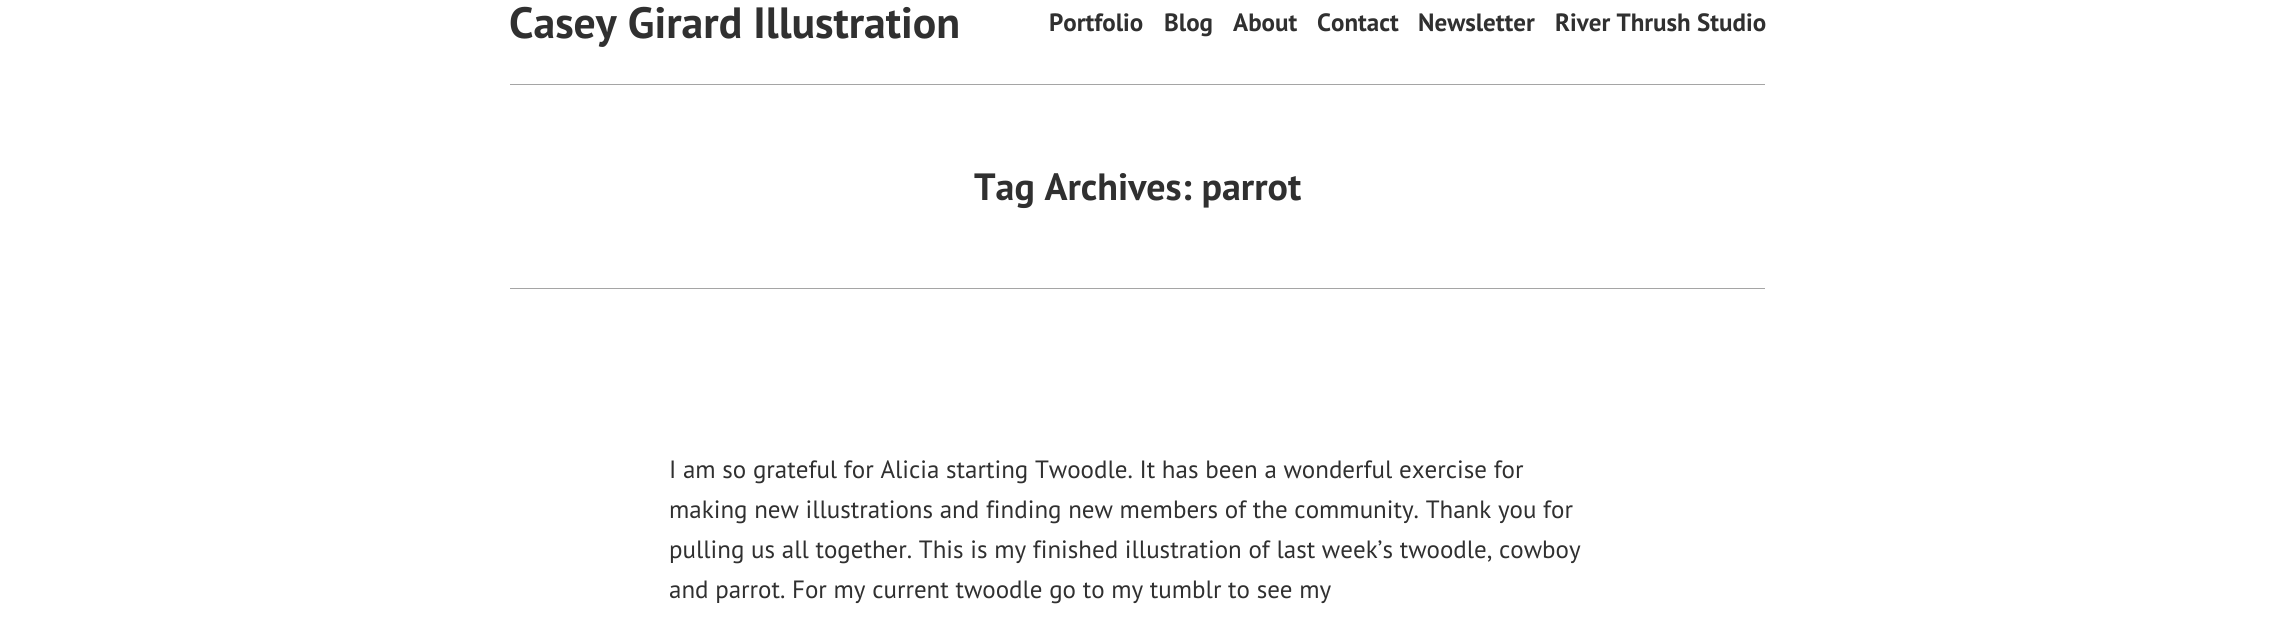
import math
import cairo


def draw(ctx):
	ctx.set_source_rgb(1, 1, 1)
	ctx.paint()
	ctx.select_font_face('PT Sans', cairo.FONT_SLANT_NORMAL, cairo.FONT_WEIGHT_BOLD)
	ctx.set_font_size(43.75)
	ctx.set_source_rgb(0.188, 0.188, 0.188)
	ctx.move_to(509, 38)
	ctx.show_text('Casey Girard Illustration')
	ctx.set_font_size(25)
	for x, y, s in [
		(1049, 31, 'Portfolio'),
		(1164, 31, 'Blog'),
		(1233, 31, 'About'),
		(1317, 31, 'Contact'),
		(1418, 31, 'Newsletter'),
		(1555, 31, 'River Thrush Studio'),
	]:
		ctx.move_to(x, y)
		ctx.show_text(s)
	ctx.set_source_rgb(0.647, 0.647, 0.647)
	ctx.rectangle(510, 84, 1255, 1)
	ctx.fill()
	ctx.set_font_size(38)
	ctx.set_source_rgb(0.188, 0.188, 0.188)
	ctx.move_to(974, 200)
	ctx.show_text('Tag Archives: parrot')
	ctx.set_source_rgb(0.647, 0.647, 0.647)
	ctx.rectangle(510, 288, 1255, 1)
	ctx.fill()
	ctx.select_font_face('PT Sans')
	ctx.set_font_size(25)
	ctx.set_source_rgb(0.188, 0.188, 0.188)
	for x, y, s in [
		(669, 478, 'I am so grateful for Alicia starting Twoodle. It has been a wonderful exercise for'),
		(669, 518, 'making new illustrations and finding new members of the community. Thank you for'),
		(669, 558, 'pulling us all together. This is my finished illustration of last week’s twoodle, cowboy'),
		(669, 598, 'and parrot. For my current twoodle go to my tumblr to see my'),
	]:
		ctx.move_to(x, y)
		ctx.show_text(s)


surface = cairo.ImageSurface(cairo.FORMAT_RGB24, 2275, 621)
ctx = cairo.Context(surface)
options = cairo.FontOptions()
options.set_hint_metrics(cairo.HINT_METRICS_OFF)
options.set_hint_style(cairo.HINT_STYLE_NONE)
ctx.set_font_options(options)
ctx.set_miter_limit(4)
draw(ctx)
surface.write_to_png('image.png')
